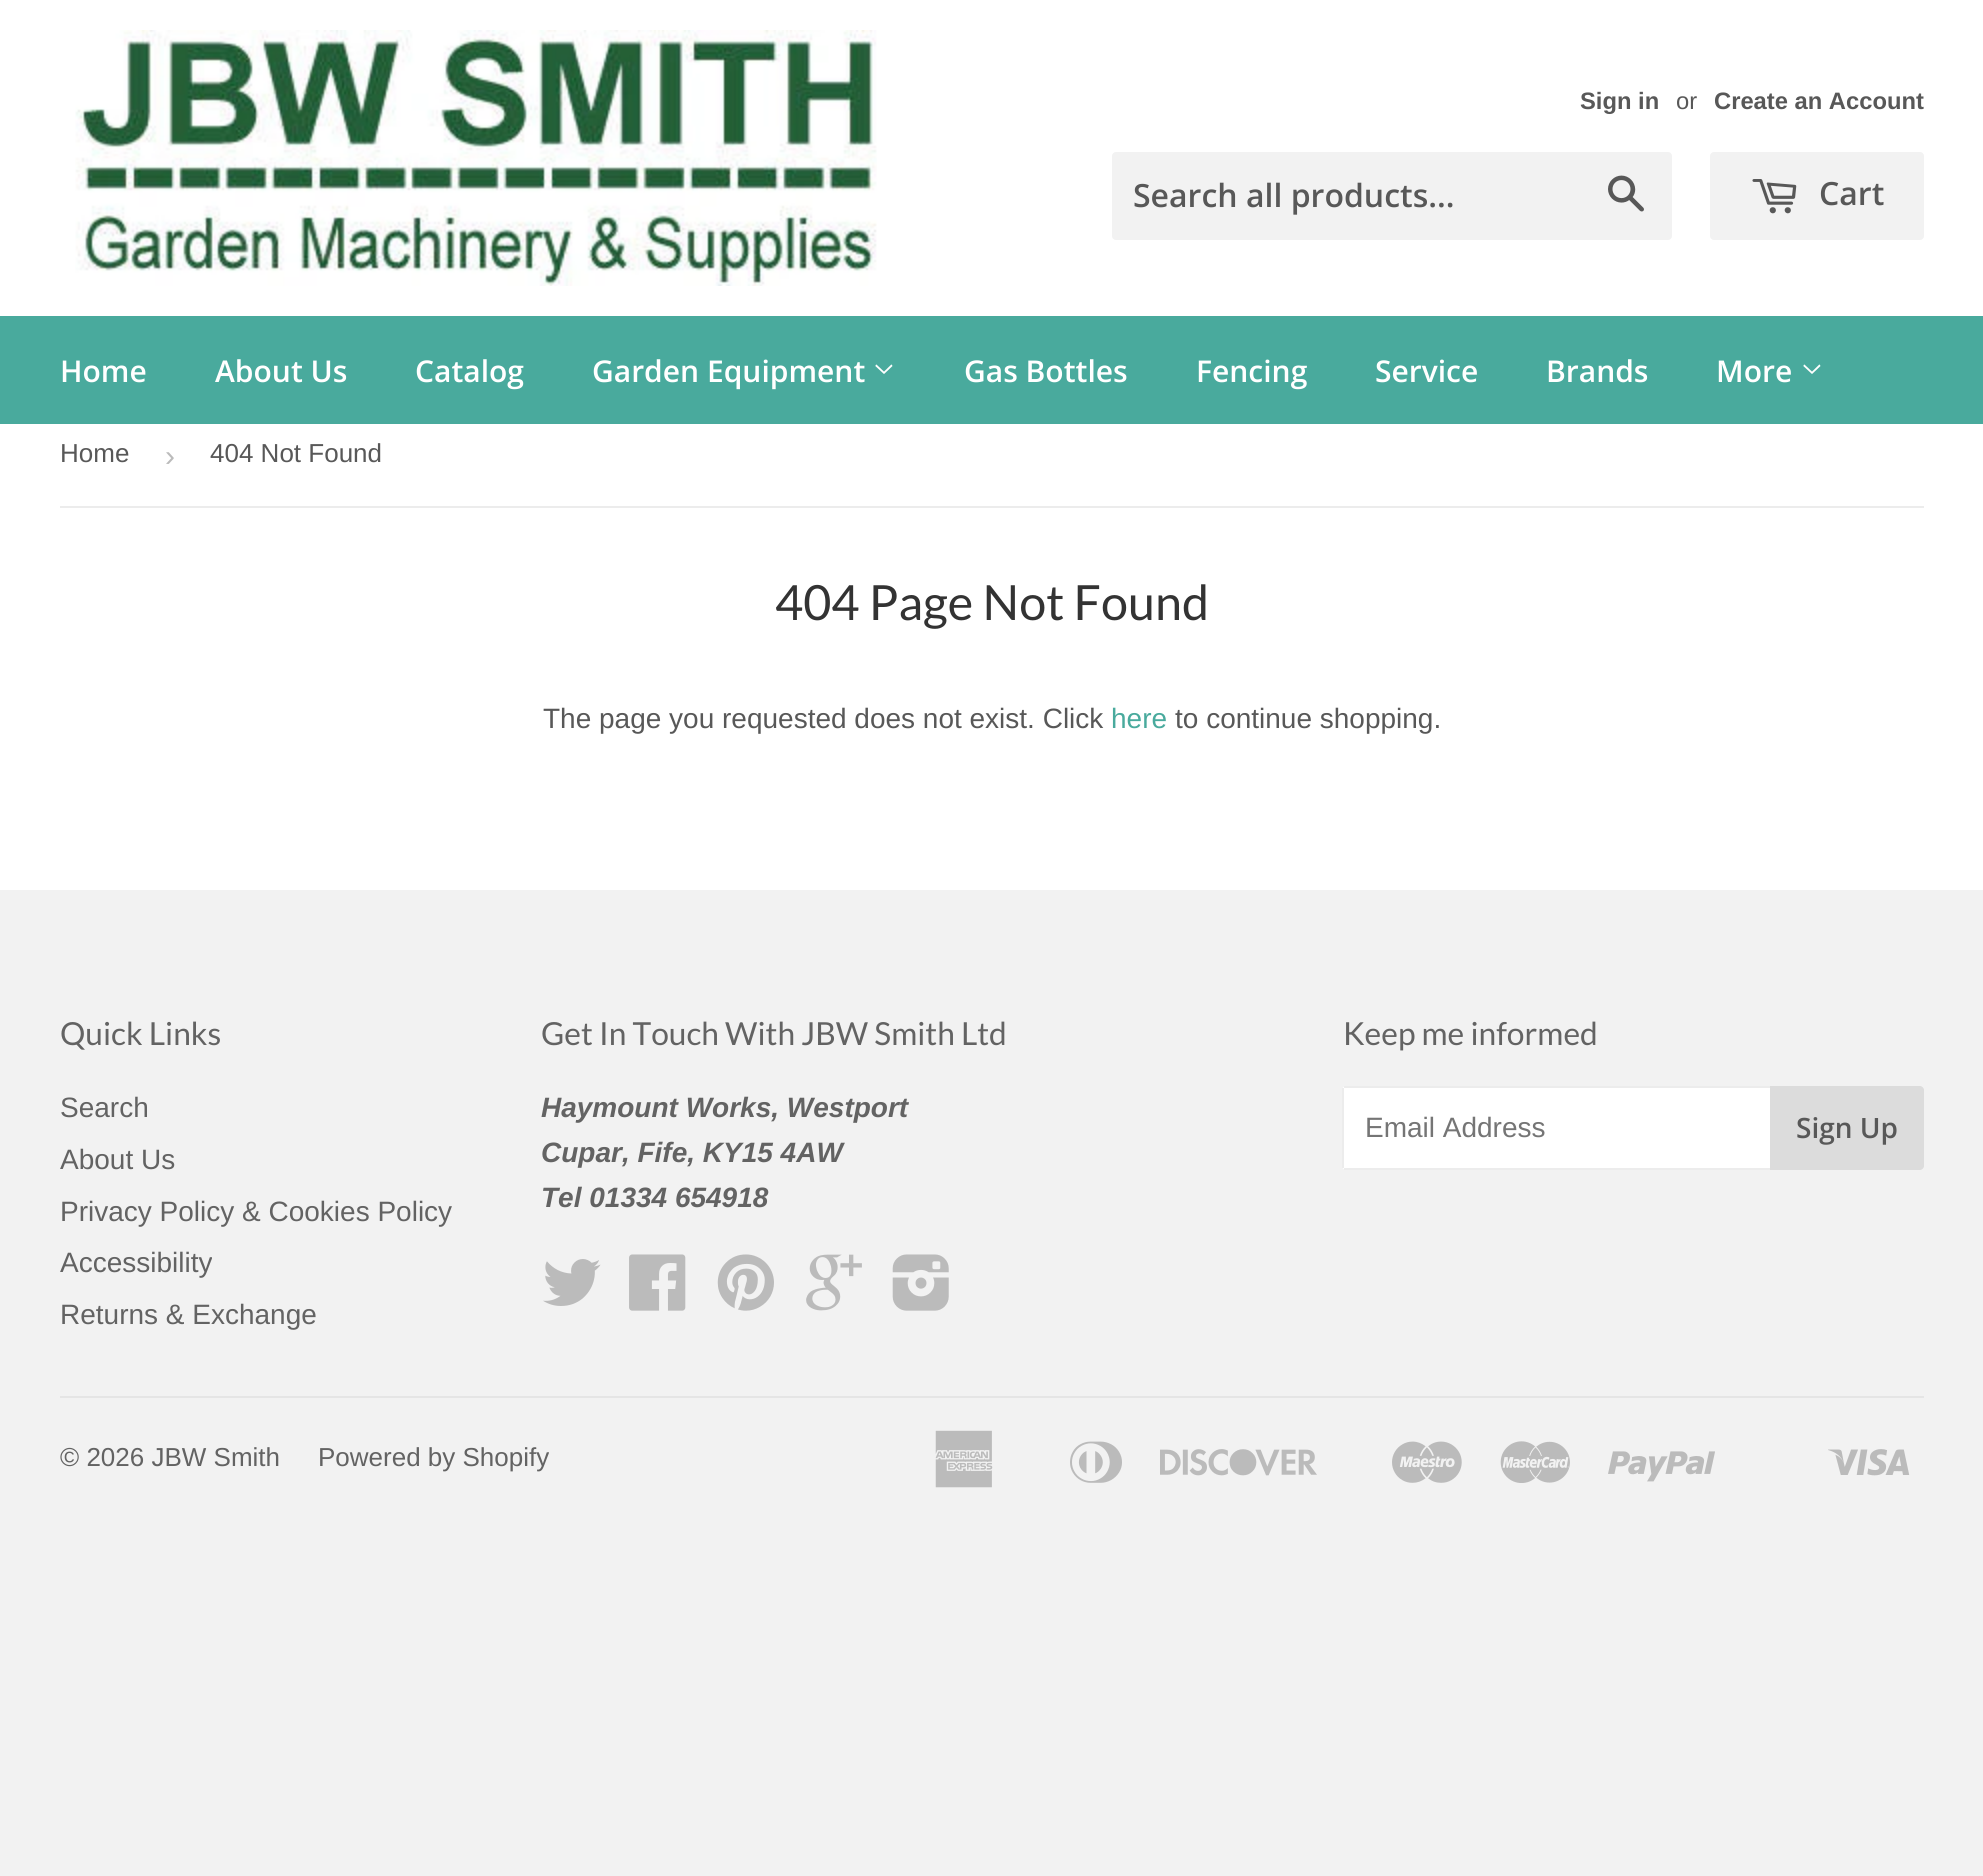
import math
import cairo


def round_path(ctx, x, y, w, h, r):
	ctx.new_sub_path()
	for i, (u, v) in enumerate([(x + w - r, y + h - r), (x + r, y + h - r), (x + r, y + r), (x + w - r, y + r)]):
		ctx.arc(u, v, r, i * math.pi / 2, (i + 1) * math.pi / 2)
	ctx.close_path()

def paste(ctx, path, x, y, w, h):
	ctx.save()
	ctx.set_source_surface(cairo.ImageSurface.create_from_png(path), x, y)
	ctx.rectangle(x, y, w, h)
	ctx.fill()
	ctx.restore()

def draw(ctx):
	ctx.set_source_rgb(0.949, 0.949, 0.949)
	ctx.paint()
	ctx.set_source_rgb(1, 1, 1)
	ctx.rectangle(0, 0, 1983, 890)
	ctx.fill()
	paste(ctx, 'media/1.png', 75, 30, 802, 256)
	ctx.select_font_face('Liberation Sans', cairo.FONT_SLANT_NORMAL, cairo.FONT_WEIGHT_BOLD)
	ctx.set_font_size(23.75)
	ctx.set_source_rgb(0.345, 0.345, 0.345)
	ctx.move_to(1580, 109)
	ctx.show_text('Sign in')
	ctx.select_font_face('Liberation Sans')
	ctx.move_to(1676, 109)
	ctx.show_text('or')
	ctx.select_font_face('Liberation Sans', cairo.FONT_SLANT_NORMAL, cairo.FONT_WEIGHT_BOLD)
	ctx.move_to(1714, 109)
	ctx.show_text('Create an Account')
	ctx.set_source_rgb(0.949, 0.949, 0.949)
	round_path(ctx, 1112, 152, 560, 88, 4)
	ctx.fill()
	ctx.select_font_face('Open Sans SemiBold')
	ctx.set_font_size(32)
	ctx.set_source_rgb(0.345, 0.345, 0.345)
	ctx.move_to(1133, 207)
	ctx.show_text('Search all products...')
	paste(ctx, 'media/2.png', 1608, 175, 36, 37)
	ctx.set_source_rgb(0.949, 0.949, 0.949)
	round_path(ctx, 1710, 152, 214, 88, 4)
	ctx.fill()
	paste(ctx, 'media/3.png', 1752, 179, 45, 35)
	ctx.set_source_rgb(0.345, 0.345, 0.345)
	ctx.move_to(1819, 205)
	ctx.show_text('Cart')
	ctx.set_source_rgb(0.286, 0.667, 0.616)
	ctx.rectangle(0, 316, 1983, 108)
	ctx.fill()
	ctx.set_font_size(30)
	ctx.set_source_rgb(1, 1, 1)
	for x, y, s in [
		(60, 382, 'Home'),
		(215, 382, 'About Us'),
		(415, 382, 'Catalog'),
		(592, 382, 'Garden Equipment'),
	]:
		ctx.move_to(x, y)
		ctx.show_text(s)
	paste(ctx, 'media/4.png', 875, 364, 18, 10)
	for x, y, s in [
		(964, 382, 'Gas Bottles'),
		(1196, 382, 'Fencing'),
		(1375, 382, 'Service'),
		(1546, 382, 'Brands'),
		(1716, 382, 'More'),
	]:
		ctx.move_to(x, y)
		ctx.show_text(s)
	paste(ctx, 'media/4.png', 1803, 364, 18, 10)
	ctx.set_source_rgb(0.925, 0.925, 0.925)
	ctx.rectangle(60, 506, 1864, 2)
	ctx.fill()
	ctx.select_font_face('Liberation Sans')
	ctx.set_font_size(26)
	ctx.set_source_rgb(0.345, 0.345, 0.345)
	ctx.move_to(60, 462)
	ctx.show_text('Home')
	ctx.set_font_size(30)
	ctx.set_source_rgb(0.733, 0.733, 0.733)
	ctx.move_to(165, 466)
	ctx.show_text('›')
	ctx.set_font_size(26)
	ctx.set_source_rgb(0.345, 0.345, 0.345)
	ctx.move_to(210, 462)
	ctx.show_text('404 Not Found')
	ctx.select_font_face('Lato')
	ctx.set_font_size(48.5)
	ctx.set_source_rgb(0.2, 0.2, 0.2)
	ctx.move_to(775, 620)
	ctx.show_text('404 Page Not Found')
	ctx.select_font_face('Liberation Sans')
	ctx.set_font_size(28)
	ctx.set_source_rgb(0.345, 0.345, 0.345)
	ctx.move_to(543, 728)
	ctx.show_text('The page you requested does not exist. Click')
	ctx.set_source_rgb(0.286, 0.667, 0.616)
	ctx.move_to(1111, 728)
	ctx.show_text('here')
	ctx.set_source_rgb(0.345, 0.345, 0.345)
	ctx.move_to(1175, 728)
	ctx.show_text('to continue shopping.')
	ctx.select_font_face('Lato')
	ctx.set_font_size(31.75)
	ctx.set_source_rgb(0.388, 0.388, 0.388)
	ctx.move_to(60, 1045)
	ctx.show_text('Quick Links')
	ctx.select_font_face('Liberation Sans')
	ctx.set_font_size(28)
	for x, y, s in [
		(60, 1117, 'Search'),
		(60, 1169, 'About Us'),
		(60, 1221, 'Privacy Policy & Cookies Policy'),
		(60, 1272, 'Accessibility'),
		(60, 1324, 'Returns & Exchange'),
	]:
		ctx.move_to(x, y)
		ctx.show_text(s)
	ctx.select_font_face('Lato')
	ctx.set_font_size(31.75)
	ctx.move_to(541, 1045)
	ctx.show_text('Get In Touch With JBW Smith Ltd')
	ctx.select_font_face('Liberation Sans', cairo.FONT_SLANT_ITALIC, cairo.FONT_WEIGHT_BOLD)
	ctx.set_font_size(28)
	for x, y, s in [
		(541, 1117, 'Haymount Works, Westport'),
		(541, 1162, 'Cupar, Fife, KY15 4AW'),
		(541, 1207, 'Tel 01334 654918'),
	]:
		ctx.move_to(x, y)
		ctx.show_text(s)
	paste(ctx, 'media/5.png', 543, 1259, 58, 47)
	paste(ctx, 'media/6.png', 629, 1254, 57, 57)
	paste(ctx, 'media/7.png', 717, 1254, 57, 57)
	paste(ctx, 'media/8.png', 806, 1254, 56, 57)
	paste(ctx, 'media/9.png', 892, 1254, 57, 57)
	ctx.select_font_face('Lato')
	ctx.set_font_size(31.75)
	ctx.move_to(1343, 1045)
	ctx.show_text('Keep me informed')
	ctx.set_source_rgb(1, 1, 1)
	ctx.new_path()
	ctx.move_to(1346, 1086)
	ctx.line_to(1770, 1086)
	ctx.line_to(1770, 1170)
	ctx.line_to(1346, 1170)
	ctx.curve_to(1344, 1170, 1342, 1168, 1342, 1166)
	ctx.line_to(1342, 1090)
	ctx.curve_to(1342, 1088, 1344, 1086, 1346, 1086)
	ctx.close_path()
	ctx.fill()
	ctx.set_source_rgb(0.925, 0.925, 0.925)
	ctx.rectangle(1344, 1086, 426, 2)
	ctx.rectangle(1344, 1168, 426, 2)
	ctx.rectangle(1342, 1088, 2, 80)
	ctx.fill()
	ctx.select_font_face('Liberation Sans')
	ctx.set_font_size(28)
	ctx.set_source_rgb(0.459, 0.459, 0.459)
	ctx.move_to(1365, 1137)
	ctx.show_text('Email Address')
	ctx.set_source_rgb(0.863, 0.863, 0.863)
	ctx.new_path()
	ctx.move_to(1770, 1086)
	ctx.line_to(1920, 1086)
	ctx.curve_to(1922, 1086, 1924, 1088, 1924, 1090)
	ctx.line_to(1924, 1166)
	ctx.curve_to(1924, 1168, 1922, 1170, 1920, 1170)
	ctx.line_to(1770, 1170)
	ctx.close_path()
	ctx.fill()
	ctx.select_font_face('Open Sans SemiBold')
	ctx.set_source_rgb(0.345, 0.345, 0.345)
	ctx.move_to(1796, 1138)
	ctx.show_text('Sign Up')
	ctx.set_source_rgb(0.898, 0.898, 0.898)
	ctx.rectangle(60, 1396, 1864, 2)
	ctx.fill()
	ctx.select_font_face('Liberation Sans')
	ctx.set_font_size(26)
	ctx.set_source_rgb(0.388, 0.388, 0.388)
	ctx.move_to(60, 1466)
	ctx.show_text('© 2026 JBW Smith')
	ctx.move_to(318, 1466)
	ctx.show_text('Powered by Shopify')
	paste(ctx, 'media/10.png', 935, 1430, 58, 58)
	paste(ctx, 'media/11.png', 1070, 1441, 52, 42)
	paste(ctx, 'media/12.png', 1160, 1449, 157, 27)
	paste(ctx, 'media/13.png', 1392, 1441, 70, 42)
	paste(ctx, 'media/14.png', 1500, 1441, 70, 42)
	paste(ctx, 'media/15.png', 1608, 1451, 107, 31)
	paste(ctx, 'media/16.png', 1828, 1449, 82, 27)


surface = cairo.ImageSurface(cairo.FORMAT_RGB24, 1983, 1876)
ctx = cairo.Context(surface)
options = cairo.FontOptions()
options.set_hint_metrics(cairo.HINT_METRICS_OFF)
options.set_hint_style(cairo.HINT_STYLE_NONE)
ctx.set_font_options(options)
ctx.set_miter_limit(4)
draw(ctx)
surface.write_to_png('image.png')
